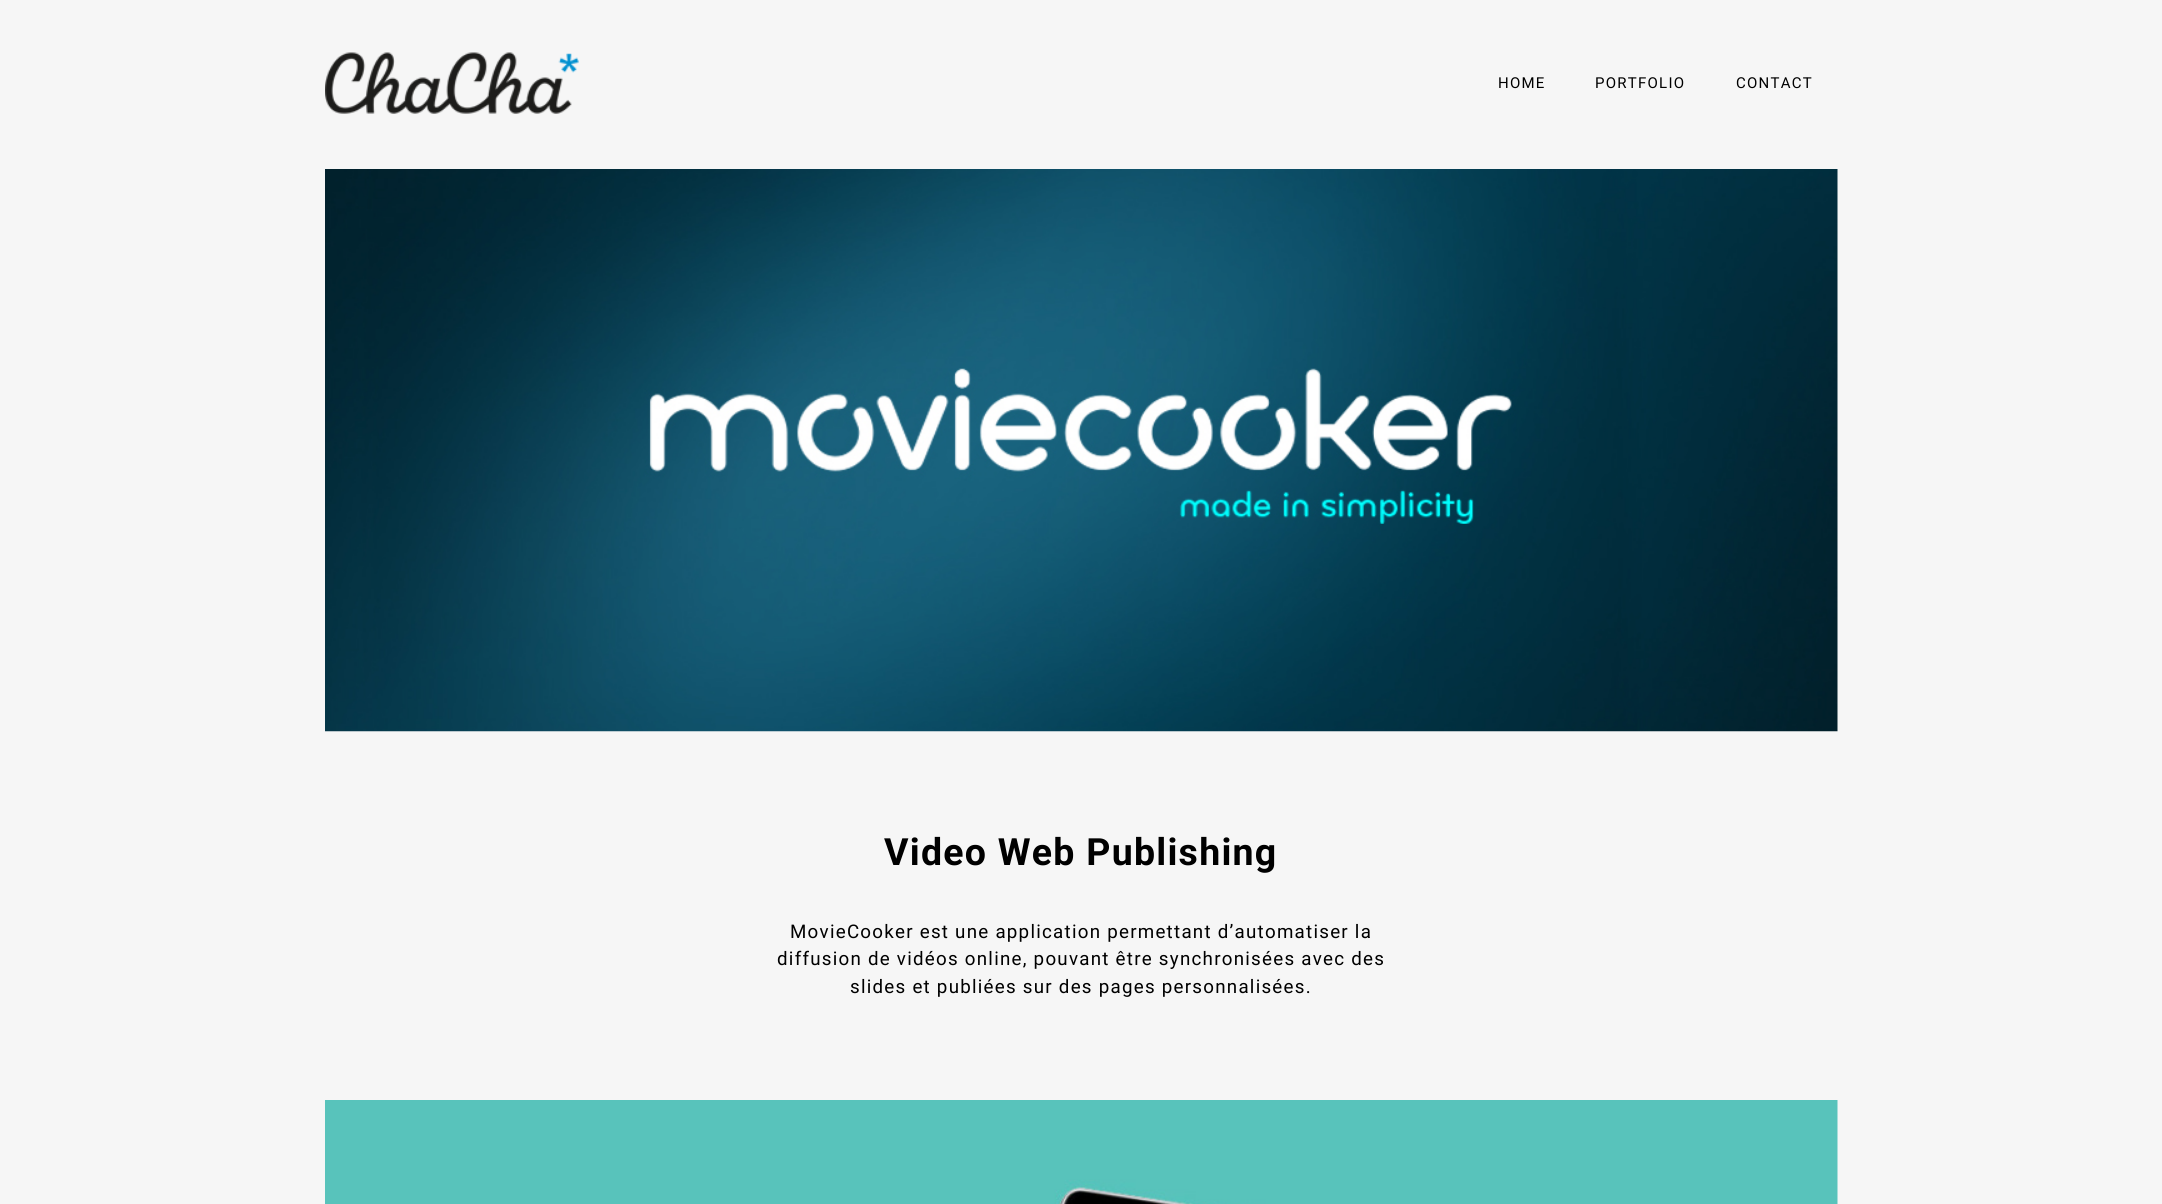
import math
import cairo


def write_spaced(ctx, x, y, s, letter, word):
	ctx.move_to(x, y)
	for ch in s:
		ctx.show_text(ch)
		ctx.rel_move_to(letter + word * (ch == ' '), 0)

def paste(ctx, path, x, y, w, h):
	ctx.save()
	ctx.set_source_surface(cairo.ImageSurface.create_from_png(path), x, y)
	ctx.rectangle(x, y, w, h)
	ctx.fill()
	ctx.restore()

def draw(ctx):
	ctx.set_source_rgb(0.961, 0.961, 0.961)
	ctx.paint()
	paste(ctx, 'media/1.png', 325, 52, 254, 62)
	ctx.select_font_face('Roboto')
	ctx.set_font_size(15)
	ctx.set_source_rgb(0, 0, 0)
	for x, y, s in [
		(1498, 88, 'HOME'),
		(1595, 88, 'PORTFOLIO'),
		(1736, 88, 'CONTACT'),
	]:
		write_spaced(ctx, x, y, s, 1.25, 0)
	paste(ctx, 'media/2.png', 325, 169, 1513, 563)
	ctx.select_font_face('Roboto', cairo.FONT_SLANT_NORMAL, cairo.FONT_WEIGHT_BOLD)
	ctx.set_font_size(37.5)
	write_spaced(ctx, 884, 865, 'Video Web Publishing', 1.25, 0)
	ctx.select_font_face('Roboto')
	ctx.set_font_size(18.75)
	for x, y, s in [
		(790, 938, 'MovieCooker est une application permettant d’automatiser la'),
		(777, 965, 'diffusion de vidéos online, pouvant être synchronisées avec des'),
		(850, 993, 'slides et publiées sur des pages personnalisées.'),
	]:
		write_spaced(ctx, x, y, s, 1.25, 0)
	paste(ctx, 'media/3.png', 325, 1100, 1513, 104)


surface = cairo.ImageSurface(cairo.FORMAT_RGB24, 2162, 1204)
ctx = cairo.Context(surface)
options = cairo.FontOptions()
options.set_hint_metrics(cairo.HINT_METRICS_OFF)
options.set_hint_style(cairo.HINT_STYLE_NONE)
ctx.set_font_options(options)
ctx.set_miter_limit(4)
draw(ctx)
surface.write_to_png('image.png')
